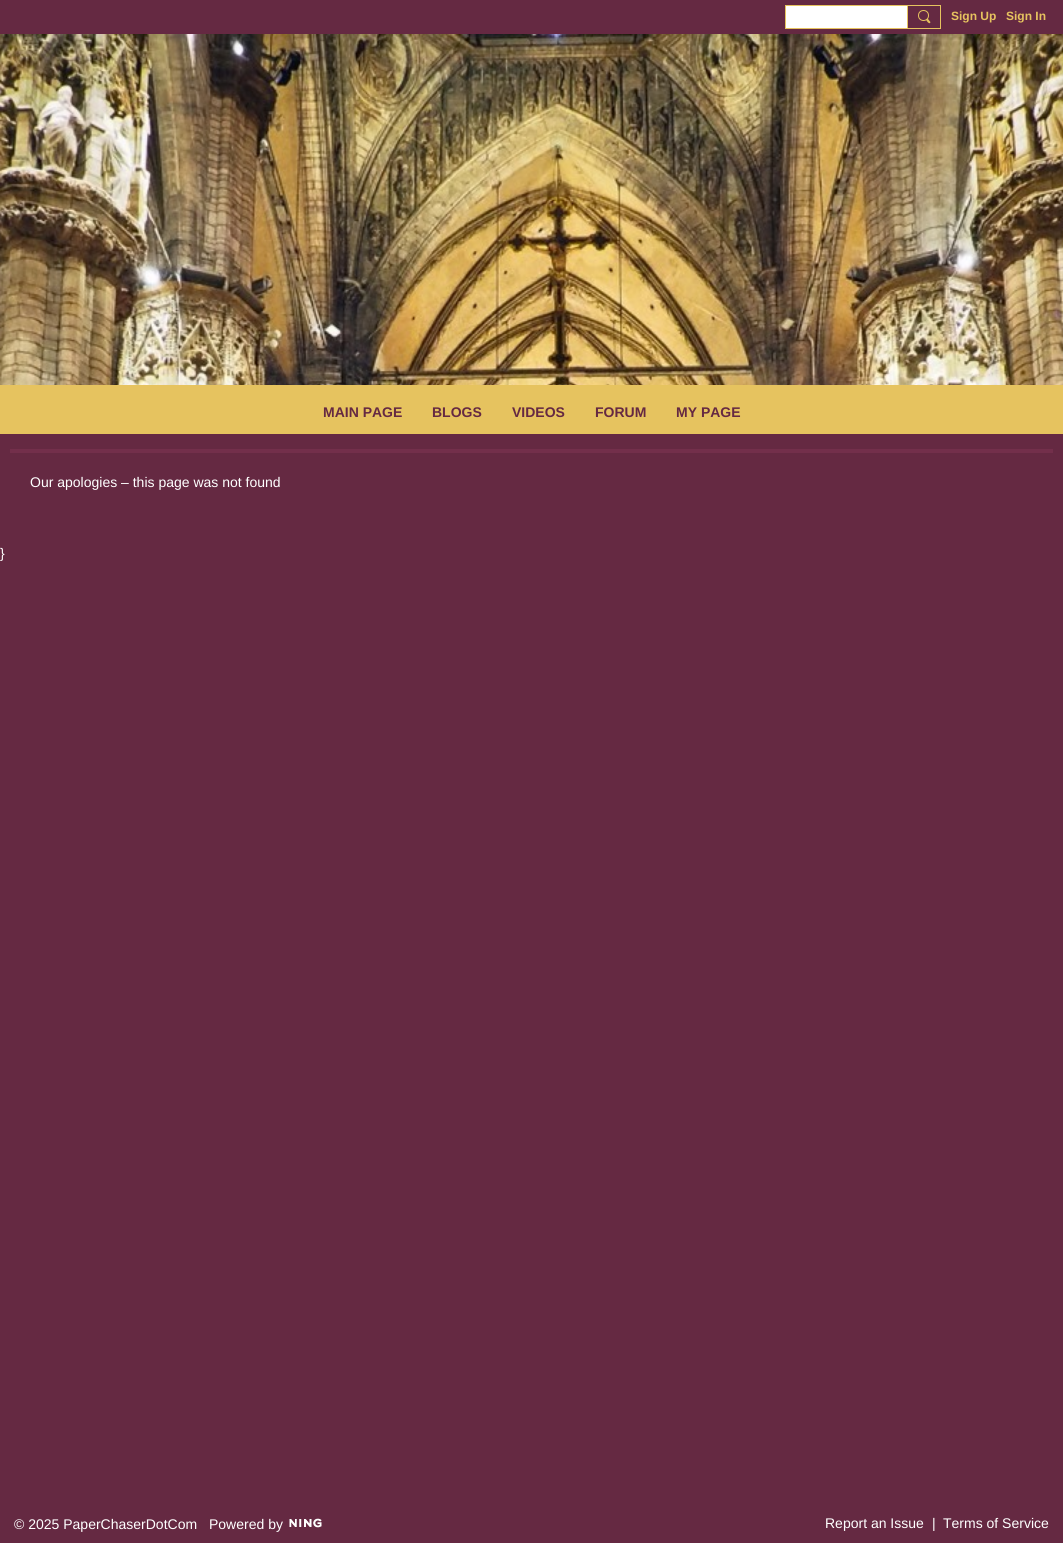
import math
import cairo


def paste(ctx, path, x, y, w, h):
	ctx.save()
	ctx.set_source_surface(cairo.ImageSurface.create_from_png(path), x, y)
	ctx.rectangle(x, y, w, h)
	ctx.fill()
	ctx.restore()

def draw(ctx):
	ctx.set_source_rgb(0.396, 0.161, 0.259)
	ctx.paint()
	ctx.set_source_rgb(1, 1, 1)
	ctx.rectangle(785.5, 5.5, 122, 23)
	ctx.fill_preserve()
	ctx.set_source_rgb(0.902, 0.765, 0.373)
	ctx.set_line_width(1)
	ctx.stroke()
	ctx.rectangle(907.5, 5.5, 33, 23)
	ctx.stroke()
	ctx.arc(923.5, 15.5, 5, 0, 2 * math.pi)
	ctx.stroke()
	ctx.new_path()
	ctx.move_to(928, 19)
	ctx.line_to(930, 21.5)
	ctx.curve_to(930.5, 22, 930.5, 22.5, 930, 23)
	ctx.curve_to(929, 24, 927, 21.5, 926.5, 20.5)
	ctx.curve_to(925.5, 19.5, 927, 18.5, 928, 19)
	ctx.close_path()
	ctx.fill()
	ctx.select_font_face('Liberation Sans', cairo.FONT_SLANT_NORMAL, cairo.FONT_WEIGHT_BOLD)
	ctx.set_font_size(12)
	ctx.move_to(951, 20)
	ctx.show_text('Sign Up')
	ctx.move_to(1006, 20)
	ctx.show_text('Sign In')
	paste(ctx, 'media/1.png', 0, 34, 1063, 351)
	ctx.rectangle(0, 385, 1063, 49)
	ctx.fill()
	ctx.set_font_size(14)
	ctx.set_source_rgb(0.396, 0.161, 0.259)
	for x, y, s in [
		(323, 417, 'MAIN PAGE'),
		(432, 417, 'BLOGS'),
		(512, 417, 'VIDEOS'),
		(595, 417, 'FORUM'),
		(676, 417, 'MY PAGE'),
	]:
		ctx.move_to(x, y)
		ctx.show_text(s)
	ctx.set_source_rgb(0.451, 0.184, 0.294)
	ctx.rectangle(10, 449, 1043, 4)
	ctx.fill()
	ctx.select_font_face('Liberation Sans')
	ctx.set_source_rgb(1, 1, 1)
	for x, y, s in [
		(30, 487, 'Our apologies – this page was not found'),
		(0, 558, '}'),
		(14, 1529, '© 2025 PaperChaserDotCom'),
		(209, 1529, 'Powered by'),
	]:
		ctx.move_to(x, y)
		ctx.show_text(s)
	paste(ctx, 'media/2.png', 289, 1518, 33, 10)
	for x, y, s in [
		(825, 1528, 'Report an Issue'),
		(932, 1528, '|'),
		(943, 1528, 'Terms of Service'),
	]:
		ctx.move_to(x, y)
		ctx.show_text(s)


surface = cairo.ImageSurface(cairo.FORMAT_RGB24, 1063, 1543)
ctx = cairo.Context(surface)
options = cairo.FontOptions()
options.set_hint_metrics(cairo.HINT_METRICS_OFF)
options.set_hint_style(cairo.HINT_STYLE_NONE)
ctx.set_font_options(options)
ctx.set_miter_limit(4)
draw(ctx)
surface.write_to_png('image.png')
